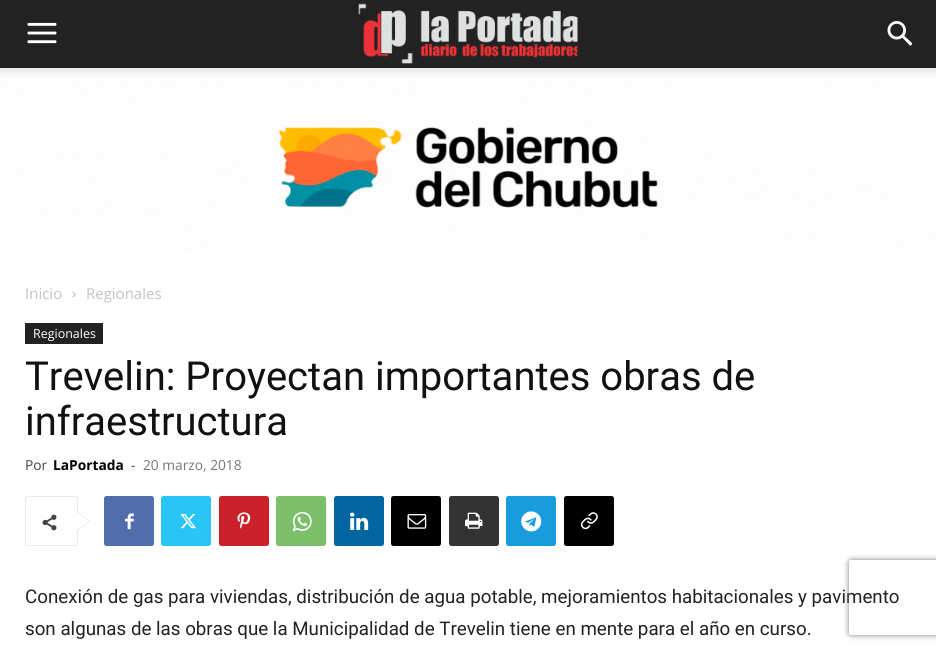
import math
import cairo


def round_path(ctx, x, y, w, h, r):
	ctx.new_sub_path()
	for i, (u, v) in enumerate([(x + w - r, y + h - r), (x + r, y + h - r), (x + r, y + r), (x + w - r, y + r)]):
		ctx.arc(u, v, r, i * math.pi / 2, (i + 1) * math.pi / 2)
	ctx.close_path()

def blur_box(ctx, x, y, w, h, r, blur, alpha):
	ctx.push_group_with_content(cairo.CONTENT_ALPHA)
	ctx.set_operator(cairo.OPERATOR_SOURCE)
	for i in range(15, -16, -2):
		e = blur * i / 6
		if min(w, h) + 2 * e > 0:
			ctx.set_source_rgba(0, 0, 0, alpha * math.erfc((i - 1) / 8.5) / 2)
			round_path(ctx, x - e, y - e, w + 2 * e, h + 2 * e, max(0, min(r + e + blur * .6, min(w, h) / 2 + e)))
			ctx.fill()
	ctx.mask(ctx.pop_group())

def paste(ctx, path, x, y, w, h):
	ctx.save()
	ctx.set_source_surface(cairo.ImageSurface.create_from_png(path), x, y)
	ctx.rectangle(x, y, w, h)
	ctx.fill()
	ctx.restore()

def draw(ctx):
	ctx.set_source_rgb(1, 1, 1)
	ctx.paint()
	ctx.set_source_rgb(0.133, 0.133, 0.133)
	ctx.rectangle(0, 0, 936, 68)
	ctx.fill()
	paste(ctx, 'media/1.png', 27, 22, 30, 22)
	paste(ctx, 'media/2.png', 358, 3, 220, 61)
	paste(ctx, 'media/3.png', 887, 21, 25, 25)
	paste(ctx, 'media/4.png', 0, 68, 936, 10)
	paste(ctx, 'media/5.png', 0, 80, 936, 175)
	ctx.select_font_face('Open Sans')
	ctx.set_font_size(15)
	ctx.set_source_rgb(0.765, 0.765, 0.765)
	ctx.move_to(25, 299)
	ctx.show_text('Inicio')
	paste(ctx, 'media/6.png', 72, 291, 4, 7)
	ctx.move_to(86, 299)
	ctx.show_text('Regionales')
	ctx.set_source_rgb(0.133, 0.133, 0.133)
	ctx.rectangle(25, 323, 78, 21)
	ctx.fill()
	ctx.set_font_size(12.5)
	ctx.set_source_rgb(1, 1, 1)
	ctx.move_to(33, 338)
	ctx.show_text('Regionales')
	ctx.select_font_face('Roboto')
	ctx.set_font_size(40)
	ctx.set_source_rgb(0.067, 0.067, 0.067)
	ctx.move_to(25, 390)
	ctx.show_text('Trevelin: Proyectan importantes obras de')
	ctx.move_to(25, 435)
	ctx.show_text('infraestructura')
	ctx.select_font_face('Open Sans')
	ctx.set_font_size(13.75)
	ctx.set_source_rgb(0.267, 0.267, 0.267)
	ctx.move_to(25, 470)
	ctx.show_text('Por')
	ctx.select_font_face('Open Sans', cairo.FONT_SLANT_NORMAL, cairo.FONT_WEIGHT_BOLD)
	ctx.set_source_rgb(0, 0, 0)
	ctx.move_to(53, 470)
	ctx.show_text('LaPortada')
	ctx.select_font_face('Open Sans')
	ctx.set_source_rgb(0.267, 0.267, 0.267)
	ctx.move_to(131, 470)
	ctx.show_text('-')
	ctx.set_source_rgb(0.463, 0.463, 0.463)
	ctx.move_to(143, 470)
	ctx.show_text('20 marzo, 2018')
	round_path(ctx, 25.5, 496.5, 52, 49, 2)
	ctx.set_source_rgb(0.914, 0.914, 0.914)
	ctx.set_line_width(1)
	ctx.stroke()
	ctx.new_path()
	ctx.move_to(76, 532.5)
	ctx.line_to(76, 510)
	ctx.line_to(90, 521)
	ctx.close_path()
	ctx.fill()
	paste(ctx, 'media/7.png', 42, 514, 15, 17)
	ctx.set_source_rgb(1, 1, 1)
	ctx.new_path()
	ctx.move_to(76, 531)
	ctx.line_to(76, 511)
	ctx.line_to(89, 521)
	ctx.close_path()
	ctx.fill()
	ctx.set_source_rgb(0.318, 0.431, 0.671)
	round_path(ctx, 104, 496, 50, 50, 2.5)
	ctx.fill()
	paste(ctx, 'media/8.png', 125, 513, 9, 17)
	ctx.set_source_rgb(0.161, 0.773, 0.965)
	round_path(ctx, 161, 496, 50, 50, 2.5)
	ctx.fill()
	paste(ctx, 'media/9.png', 180, 514, 16, 15)
	ctx.set_source_rgb(0.792, 0.129, 0.165)
	round_path(ctx, 219, 496, 50, 50, 2.5)
	ctx.fill()
	paste(ctx, 'media/10.png', 237, 512, 14, 17)
	ctx.set_source_rgb(0.482, 0.749, 0.416)
	round_path(ctx, 276, 496, 50, 50, 2.5)
	ctx.fill()
	paste(ctx, 'media/11.png', 292, 511, 20, 21)
	ctx.set_source_rgb(0.008, 0.4, 0.627)
	round_path(ctx, 334, 496, 50, 50, 2.5)
	ctx.fill()
	paste(ctx, 'media/12.png', 350, 512, 19, 18)
	ctx.set_source_rgb(0, 0, 0)
	round_path(ctx, 391, 496, 50, 50, 2.5)
	ctx.fill()
	paste(ctx, 'media/13.png', 407, 514, 20, 15)
	ctx.set_source_rgb(0.2, 0.2, 0.2)
	round_path(ctx, 449, 496, 50, 50, 2.5)
	ctx.fill()
	paste(ctx, 'media/14.png', 465, 512, 18, 17)
	ctx.set_source_rgb(0.09, 0.612, 0.871)
	round_path(ctx, 506, 496, 50, 50, 2.5)
	ctx.fill()
	paste(ctx, 'media/15.png', 521, 511, 21, 21)
	ctx.set_source_rgb(0, 0, 0)
	round_path(ctx, 564, 496, 50, 50, 2.5)
	ctx.fill()
	paste(ctx, 'media/16.png', 580, 512, 18, 18)
	ctx.select_font_face('Roboto')
	ctx.set_font_size(18.75)
	ctx.set_source_rgb(0.133, 0.133, 0.133)
	ctx.move_to(25, 603)
	ctx.show_text('Conexión de gas para viviendas, distribución de agua potable, mejoramientos habitacionales y pavimento')
	ctx.move_to(25, 635)
	ctx.show_text('son algunas de las obras que la Municipalidad de Trevelin tiene en mente para el año en curso.')
	ctx.save()
	ctx.set_fill_rule(cairo.FILL_RULE_EVEN_ODD)
	ctx.new_path()
	ctx.move_to(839, 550)
	ctx.line_to(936, 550)
	ctx.line_to(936, 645)
	ctx.line_to(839, 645)
	ctx.close_path()
	ctx.move_to(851.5, 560)
	ctx.line_to(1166.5, 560)
	ctx.curve_to(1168, 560, 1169, 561, 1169, 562.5)
	ctx.line_to(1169, 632.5)
	ctx.curve_to(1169, 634, 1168, 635, 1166.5, 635)
	ctx.line_to(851.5, 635)
	ctx.curve_to(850, 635, 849, 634, 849, 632.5)
	ctx.line_to(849, 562.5)
	ctx.curve_to(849, 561, 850, 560, 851.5, 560)
	ctx.close_path()
	ctx.clip()
	ctx.set_source_rgb(0.502, 0.502, 0.502)
	blur_box(ctx, 849, 560, 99, 75, 2.5, 3, 1)
	ctx.restore()


surface = cairo.ImageSurface(cairo.FORMAT_RGB24, 936, 652)
ctx = cairo.Context(surface)
options = cairo.FontOptions()
options.set_hint_metrics(cairo.HINT_METRICS_OFF)
options.set_hint_style(cairo.HINT_STYLE_NONE)
ctx.set_font_options(options)
ctx.set_miter_limit(4)
draw(ctx)
surface.write_to_png('image.png')
